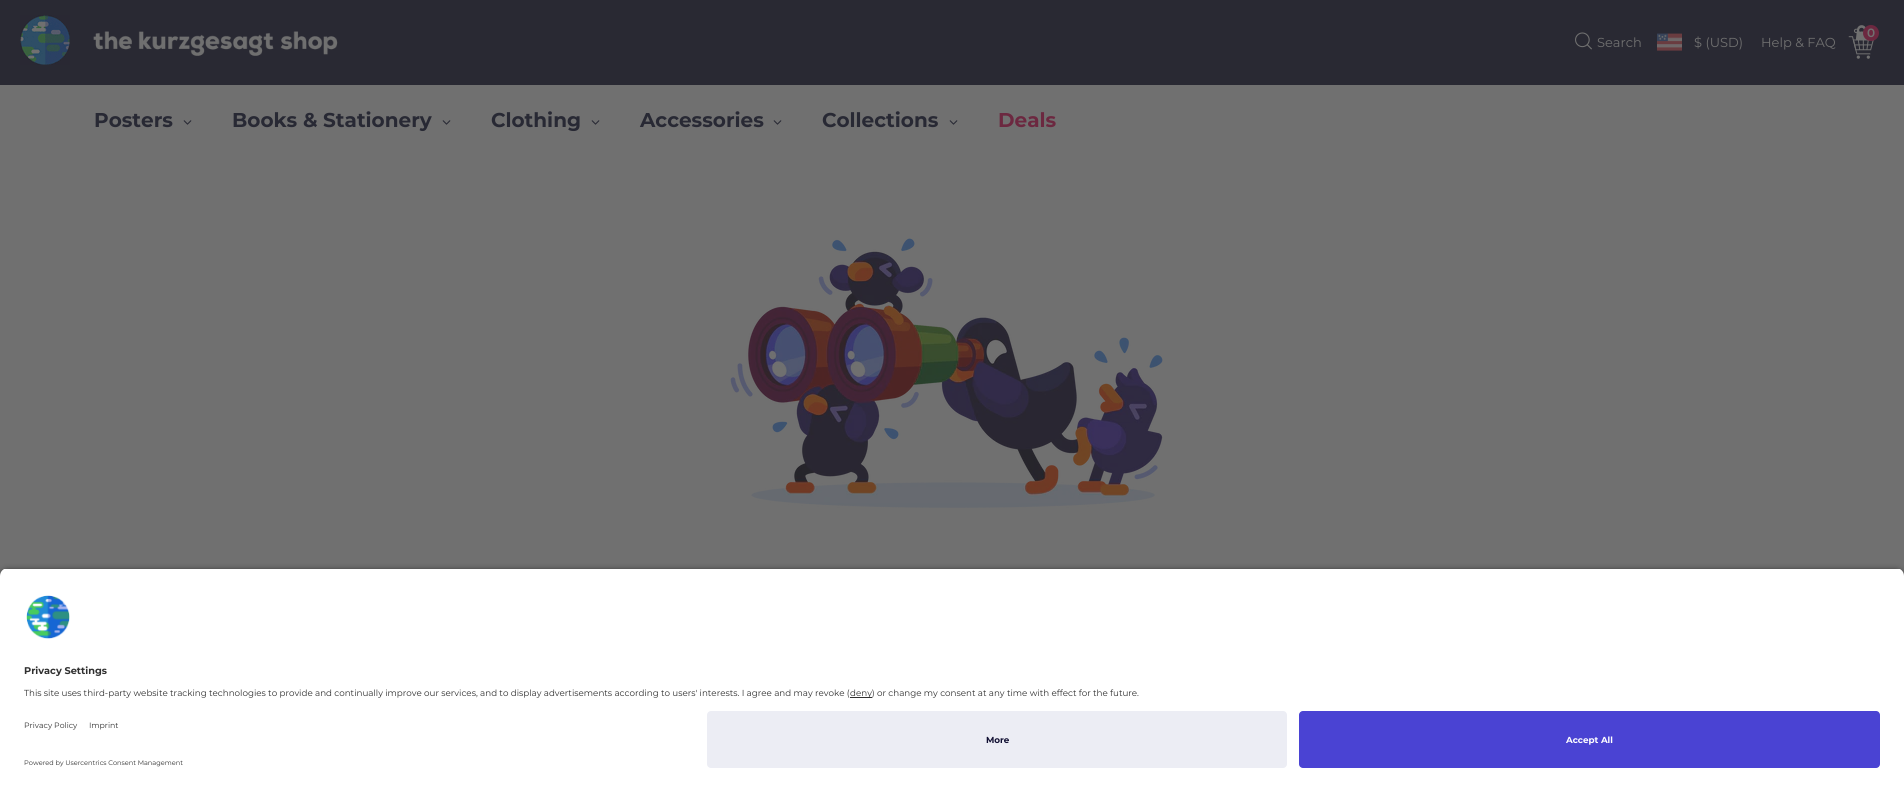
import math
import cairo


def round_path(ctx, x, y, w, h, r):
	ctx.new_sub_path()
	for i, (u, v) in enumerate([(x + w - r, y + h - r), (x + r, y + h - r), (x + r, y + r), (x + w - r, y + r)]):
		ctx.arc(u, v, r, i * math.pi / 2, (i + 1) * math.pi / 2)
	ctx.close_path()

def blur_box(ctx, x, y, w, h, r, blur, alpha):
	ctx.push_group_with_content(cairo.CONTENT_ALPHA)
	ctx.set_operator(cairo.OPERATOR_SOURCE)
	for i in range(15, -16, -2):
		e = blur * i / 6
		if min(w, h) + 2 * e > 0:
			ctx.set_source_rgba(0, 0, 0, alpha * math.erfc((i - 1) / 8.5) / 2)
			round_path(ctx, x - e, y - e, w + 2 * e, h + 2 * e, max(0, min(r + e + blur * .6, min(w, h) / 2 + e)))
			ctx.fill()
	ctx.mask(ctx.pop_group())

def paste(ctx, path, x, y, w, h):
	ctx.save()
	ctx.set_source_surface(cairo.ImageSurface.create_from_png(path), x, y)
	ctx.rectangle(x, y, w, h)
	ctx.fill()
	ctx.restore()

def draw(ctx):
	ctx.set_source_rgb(0.439, 0.439, 0.439)
	ctx.paint()
	ctx.set_source_rgb(0.161, 0.161, 0.2)
	ctx.rectangle(0, 0, 1904, 85)
	ctx.fill()
	paste(ctx, 'media/1.png', 20, 15, 50, 50)
	paste(ctx, 'media/2.png', 93, 31, 245, 25)
	paste(ctx, 'media/3.png', 1848, 25, 26, 34)
	ctx.set_source_rgb(0.424, 0.157, 0.251)
	ctx.arc(1871, 33, 8, 0, 2 * math.pi)
	ctx.fill()
	ctx.select_font_face('Montserrat SemiBold')
	ctx.set_font_size(12)
	ctx.set_source_rgb(0.439, 0.439, 0.439)
	ctx.move_to(1867, 37)
	ctx.show_text('0')
	paste(ctx, 'media/4.png', 1575, 32, 17, 18)
	ctx.select_font_face('Montserrat')
	ctx.set_font_size(13)
	ctx.move_to(1597, 47)
	ctx.show_text('Search')
	paste(ctx, 'media/5.png', 1657, 33, 25, 18)
	ctx.move_to(1694, 47)
	ctx.show_text('$ (USD)')
	ctx.move_to(1761, 47)
	ctx.show_text('Help & FAQ')
	ctx.select_font_face('Montserrat', cairo.FONT_SLANT_NORMAL, cairo.FONT_WEIGHT_BOLD)
	ctx.set_font_size(20)
	ctx.set_source_rgb(0.157, 0.161, 0.204)
	ctx.move_to(94, 127)
	ctx.show_text('Posters')
	paste(ctx, 'media/6.png', 183, 120, 9, 5)
	ctx.move_to(232, 127)
	ctx.show_text('Books & Stationery')
	paste(ctx, 'media/6.png', 442, 120, 9, 5)
	ctx.move_to(491, 127)
	ctx.show_text('Clothing')
	paste(ctx, 'media/6.png', 591, 120, 9, 5)
	ctx.move_to(640, 127)
	ctx.show_text('Accessories')
	paste(ctx, 'media/6.png', 773, 120, 9, 5)
	ctx.move_to(822, 127)
	ctx.show_text('Collections')
	paste(ctx, 'media/6.png', 949, 120, 9, 5)
	ctx.set_source_rgb(0.424, 0.157, 0.251)
	ctx.move_to(998, 127)
	ctx.show_text('Deals')
	paste(ctx, 'media/7.png', 730, 238, 433, 270)
	ctx.set_source_rgb(0, 0, 0)
	blur_box(ctx, 0, 571, 1904, 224, 8, 3.5, 0.8)
	ctx.save()
	ctx.new_path()
	ctx.move_to(8, 568)
	ctx.line_to(1896, 568)
	ctx.curve_to(1900.5, 568, 1904, 571.5, 1904, 576)
	ctx.line_to(1904, 703)
	ctx.line_to(0, 703)
	ctx.line_to(0, 576)
	ctx.curve_to(0, 571.5, 3.5, 568, 8, 568)
	ctx.close_path()
	ctx.clip()
	ctx.set_source_rgb(1, 1, 1)
	ctx.rectangle(0, 569, 1904, 134)
	ctx.fill()
	ctx.restore()
	paste(ctx, 'media/8.png', 26, 595, 44, 44)
	ctx.set_font_size(9.75)
	ctx.set_source_rgb(0.188, 0.188, 0.188)
	ctx.move_to(24, 674)
	ctx.show_text('Privacy Settings')
	ctx.select_font_face('Montserrat')
	ctx.set_font_size(8.75)
	ctx.move_to(24, 696)
	ctx.show_text('This site uses third-party website tracking technologies to provide and continually improve our services, and to display advertisements according to users\' interests. I agree and may revoke (')
	ctx.rectangle(850, 697, 22, 1)
	ctx.fill()
	ctx.move_to(850, 696)
	ctx.show_text('deny) or change my consent at any time with effect for the future.')
	ctx.set_source_rgb(1, 1, 1)
	ctx.rectangle(0, 703, 1904, 89)
	ctx.fill()
	ctx.set_font_size(7.75)
	ctx.set_source_rgb(0.188, 0.188, 0.188)
	ctx.move_to(24, 728)
	ctx.show_text('Privacy Policy')
	ctx.move_to(89, 728)
	ctx.show_text('Imprint')
	ctx.set_font_size(6.6)
	ctx.move_to(24, 765)
	ctx.show_text('Powered by Usercentrics Consent Management')
	ctx.set_source_rgb(0.925, 0.929, 0.957)
	round_path(ctx, 707, 711, 580, 57, 4)
	ctx.fill()
	ctx.select_font_face('Montserrat', cairo.FONT_SLANT_NORMAL, cairo.FONT_WEIGHT_BOLD)
	ctx.set_font_size(8.75)
	ctx.set_source_rgb(0.067, 0.059, 0.196)
	ctx.move_to(986, 743)
	ctx.show_text('More')
	ctx.set_source_rgb(0.29, 0.263, 0.827)
	round_path(ctx, 1299, 711, 581, 57, 4)
	ctx.fill()
	ctx.set_source_rgb(1, 1, 1)
	ctx.move_to(1566, 743)
	ctx.show_text('Accept All')


surface = cairo.ImageSurface(cairo.FORMAT_RGB24, 1904, 792)
ctx = cairo.Context(surface)
options = cairo.FontOptions()
options.set_hint_metrics(cairo.HINT_METRICS_OFF)
options.set_hint_style(cairo.HINT_STYLE_NONE)
ctx.set_font_options(options)
ctx.set_miter_limit(4)
draw(ctx)
surface.write_to_png('image.png')
